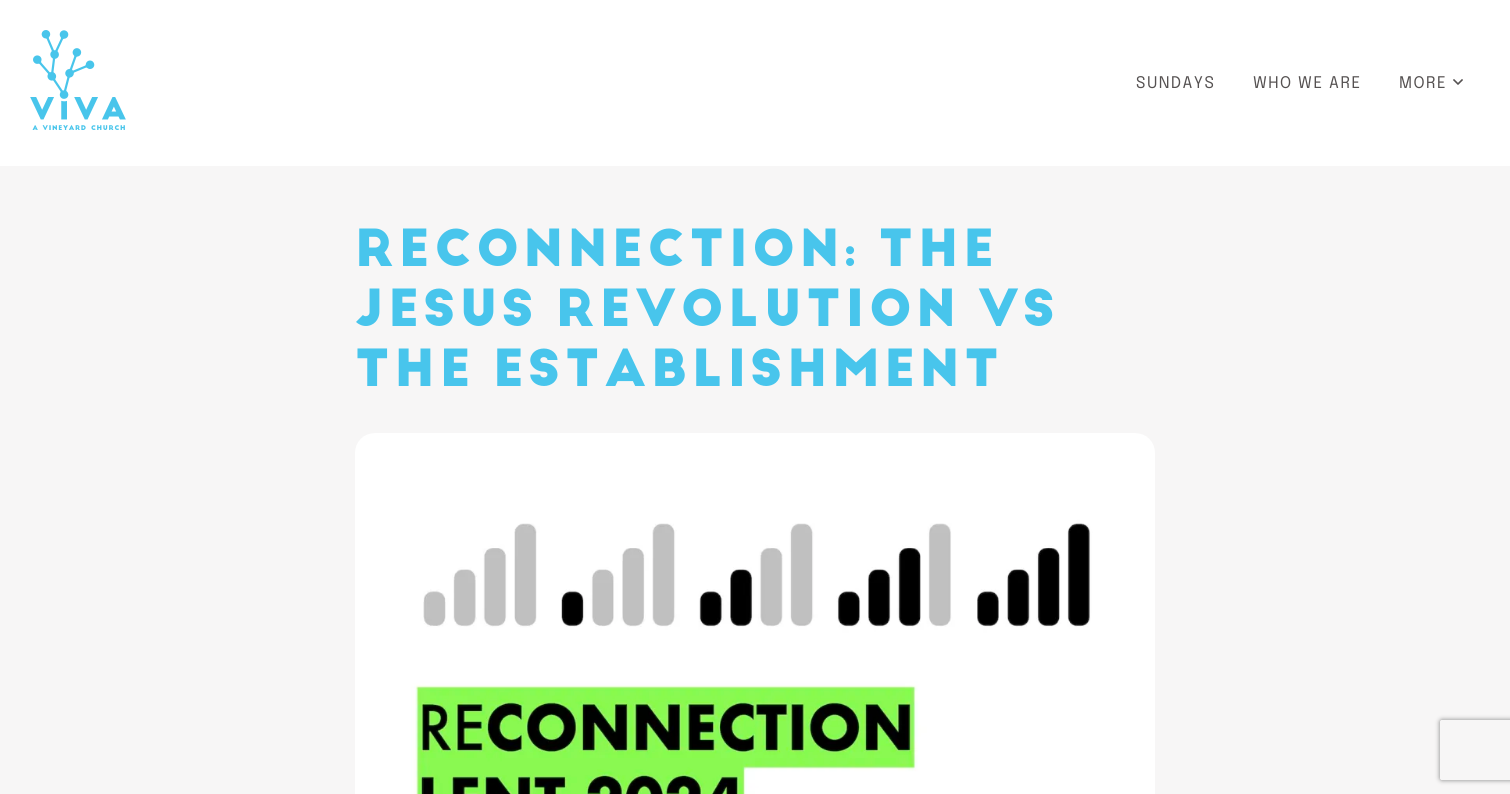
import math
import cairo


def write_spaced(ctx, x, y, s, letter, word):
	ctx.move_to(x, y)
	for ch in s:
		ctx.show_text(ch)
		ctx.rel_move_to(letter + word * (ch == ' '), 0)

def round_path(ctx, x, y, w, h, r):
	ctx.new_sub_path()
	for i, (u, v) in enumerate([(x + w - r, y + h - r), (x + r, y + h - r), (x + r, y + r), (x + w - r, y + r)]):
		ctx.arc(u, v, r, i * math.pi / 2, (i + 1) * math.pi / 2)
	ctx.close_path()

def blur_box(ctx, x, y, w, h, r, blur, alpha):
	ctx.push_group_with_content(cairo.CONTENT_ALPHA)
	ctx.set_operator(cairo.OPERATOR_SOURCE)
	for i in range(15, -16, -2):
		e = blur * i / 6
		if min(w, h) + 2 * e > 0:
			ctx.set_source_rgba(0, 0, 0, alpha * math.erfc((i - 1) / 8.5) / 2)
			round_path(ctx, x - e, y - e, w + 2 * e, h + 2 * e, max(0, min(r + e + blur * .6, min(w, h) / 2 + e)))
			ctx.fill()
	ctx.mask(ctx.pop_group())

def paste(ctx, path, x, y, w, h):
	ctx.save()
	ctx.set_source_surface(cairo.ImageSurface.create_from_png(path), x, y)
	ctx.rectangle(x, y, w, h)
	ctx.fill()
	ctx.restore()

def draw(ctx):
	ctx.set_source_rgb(0.965, 0.961, 0.961)
	ctx.paint()
	ctx.set_source_rgb(1, 1, 1)
	ctx.rectangle(0, 0, 1510, 166)
	ctx.fill()
	paste(ctx, 'media/1.png', 30, 30, 96, 100)
	ctx.select_font_face('Epilogue')
	ctx.set_font_size(16)
	ctx.set_source_rgb(0.333, 0.318, 0.318)
	for x, y, s in [
		(1136, 88, 'SUNDAYS'),
		(1253, 88, 'WHO WE ARE'),
		(1399, 88, 'MORE'),
	]:
		write_spaced(ctx, x, y, s, 1.5, 0)
	paste(ctx, 'media/2.png', 1453, 79, 10, 6)
	ctx.select_font_face('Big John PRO', cairo.FONT_SLANT_NORMAL, cairo.FONT_WEIGHT_BOLD)
	ctx.set_font_size(50)
	ctx.set_source_rgb(0.282, 0.773, 0.922)
	for x, y, s in [
		(355, 266, 'RECONNECTION: THE'),
		(355, 326, 'JESUS REVOLUTION VS'),
		(355, 386, 'THE ESTABLISHMENT'),
	]:
		write_spaced(ctx, x, y, s, 5, 0)
	paste(ctx, 'media/3.png', 355, 433, 800, 361)
	ctx.save()
	ctx.set_fill_rule(cairo.FILL_RULE_EVEN_ODD)
	ctx.new_path()
	ctx.move_to(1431, 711)
	ctx.line_to(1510, 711)
	ctx.line_to(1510, 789)
	ctx.line_to(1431, 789)
	ctx.close_path()
	ctx.move_to(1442, 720)
	ctx.line_to(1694, 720)
	ctx.curve_to(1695, 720, 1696, 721, 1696, 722)
	ctx.line_to(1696, 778)
	ctx.curve_to(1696, 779, 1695, 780, 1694, 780)
	ctx.line_to(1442, 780)
	ctx.curve_to(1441, 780, 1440, 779, 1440, 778)
	ctx.line_to(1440, 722)
	ctx.curve_to(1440, 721, 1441, 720, 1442, 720)
	ctx.close_path()
	ctx.clip()
	ctx.set_source_rgb(0.502, 0.502, 0.502)
	blur_box(ctx, 1440, 720, 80, 60, 2, 2.5, 1)
	ctx.restore()


surface = cairo.ImageSurface(cairo.FORMAT_RGB24, 1510, 794)
ctx = cairo.Context(surface)
options = cairo.FontOptions()
options.set_hint_metrics(cairo.HINT_METRICS_OFF)
options.set_hint_style(cairo.HINT_STYLE_NONE)
ctx.set_font_options(options)
ctx.set_miter_limit(4)
draw(ctx)
surface.write_to_png('image.png')
